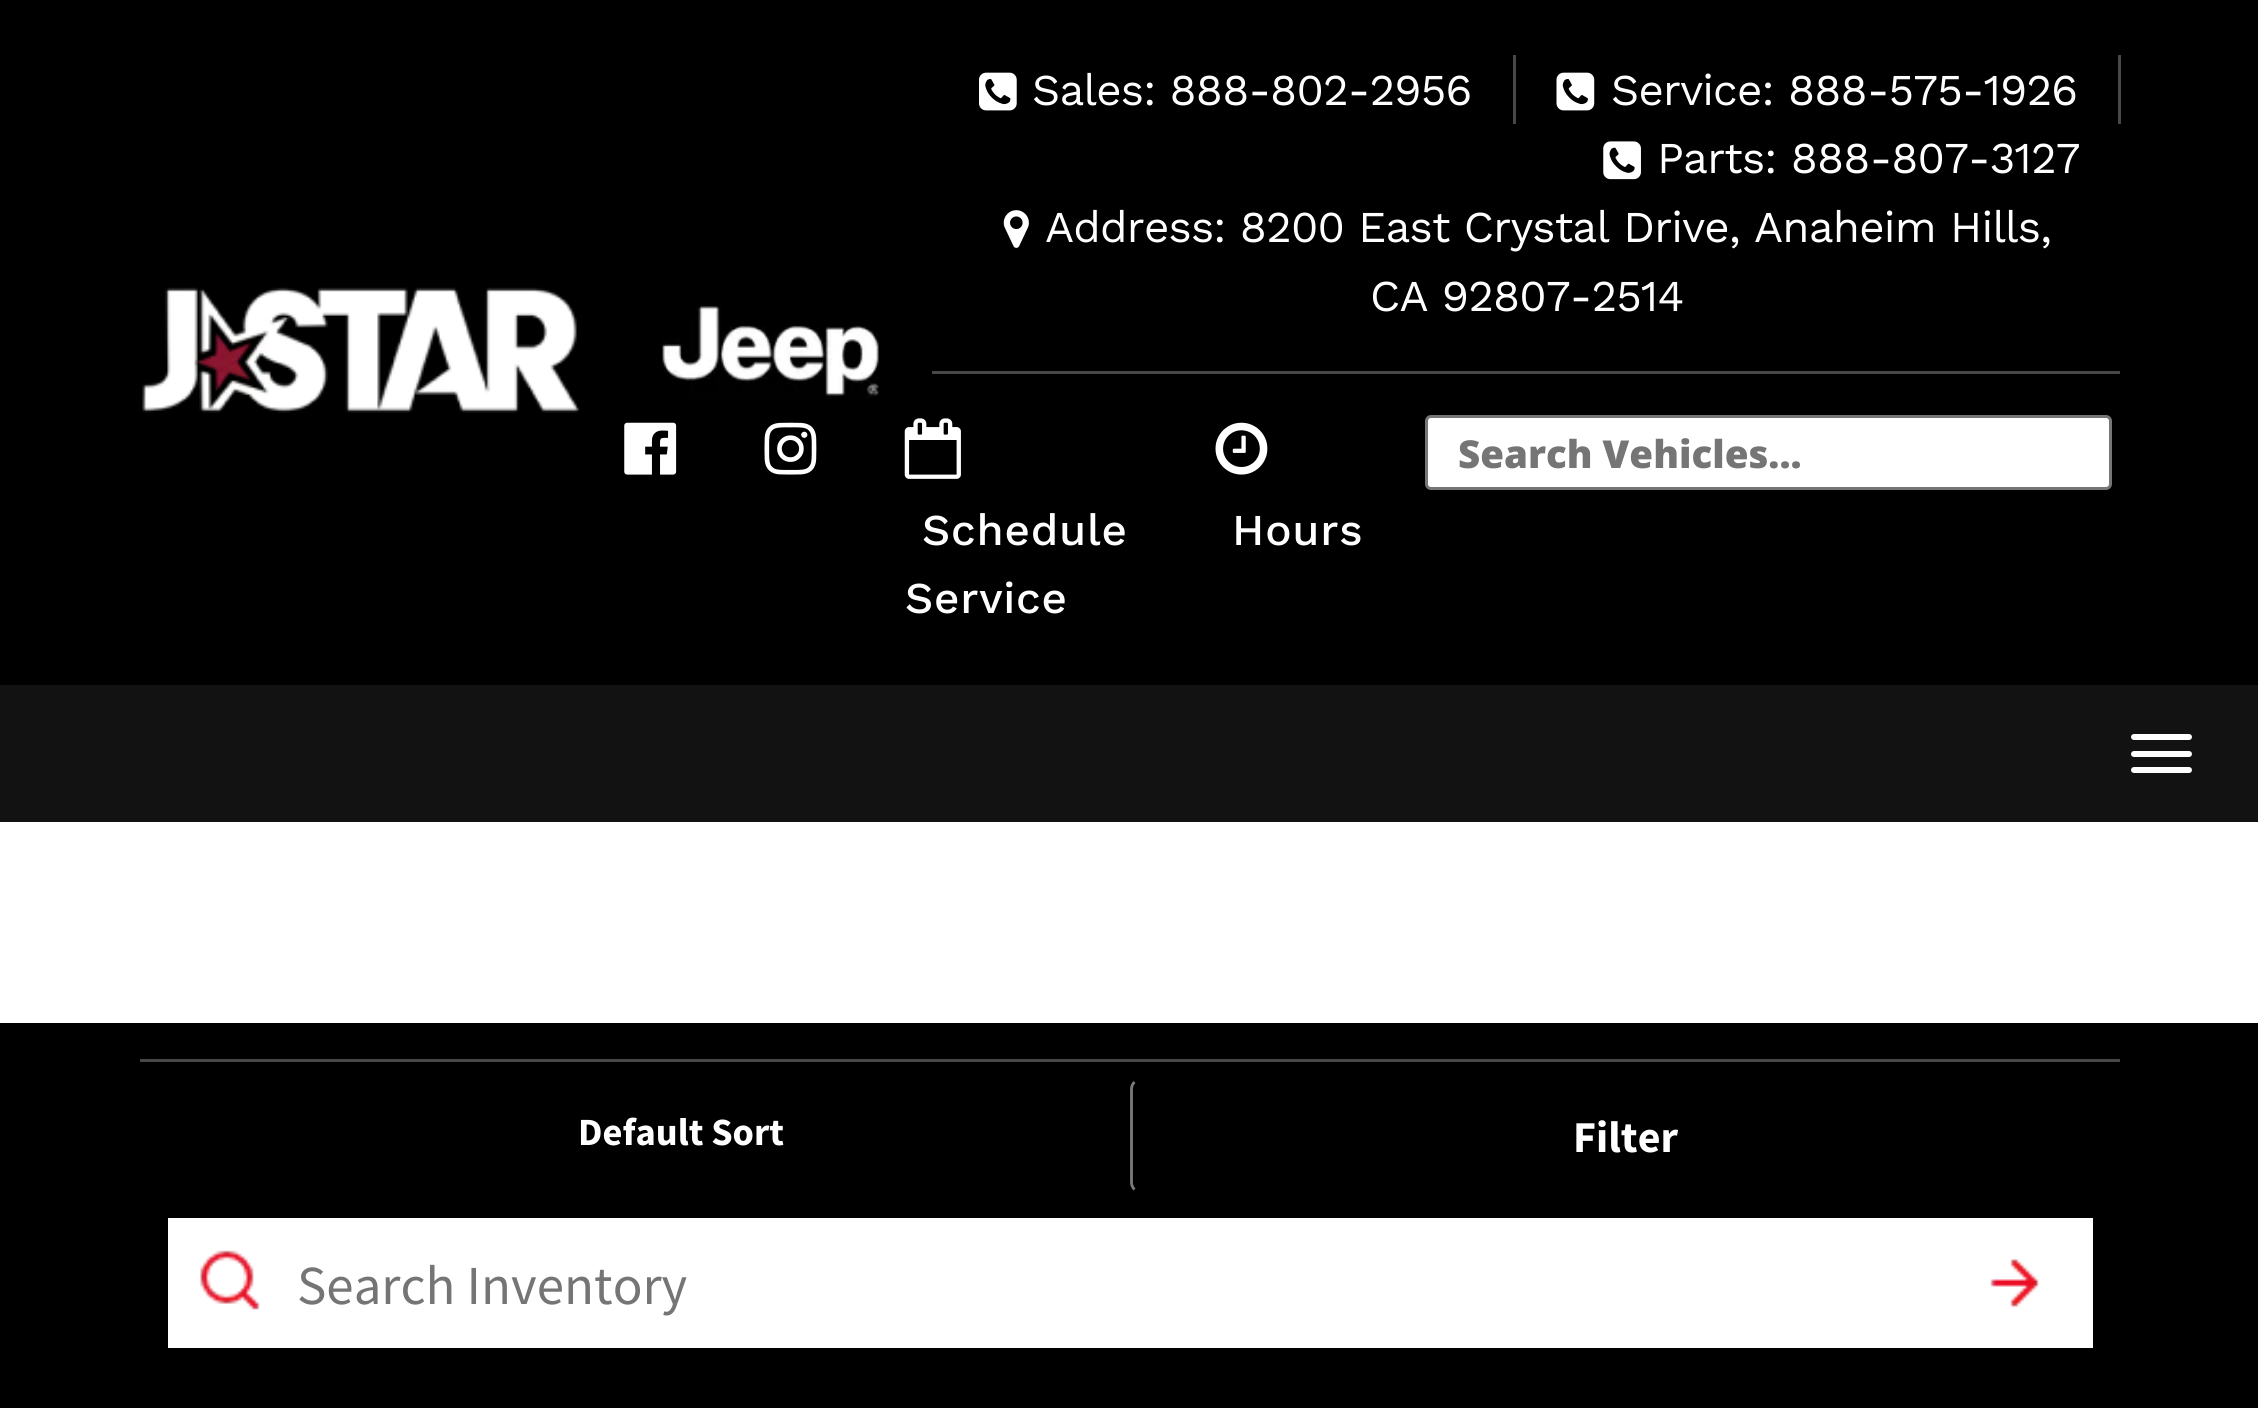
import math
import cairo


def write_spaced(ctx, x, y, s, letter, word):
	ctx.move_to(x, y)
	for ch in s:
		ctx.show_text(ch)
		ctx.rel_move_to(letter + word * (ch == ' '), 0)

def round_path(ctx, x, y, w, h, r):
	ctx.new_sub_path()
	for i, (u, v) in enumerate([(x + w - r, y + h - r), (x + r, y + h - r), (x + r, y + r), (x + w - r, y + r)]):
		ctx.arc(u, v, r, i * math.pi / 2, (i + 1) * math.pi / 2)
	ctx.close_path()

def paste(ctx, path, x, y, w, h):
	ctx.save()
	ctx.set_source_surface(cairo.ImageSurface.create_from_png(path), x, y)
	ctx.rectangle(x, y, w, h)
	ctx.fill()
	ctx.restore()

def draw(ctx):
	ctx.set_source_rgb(1, 1, 1)
	ctx.paint()
	ctx.set_source_rgb(0, 0, 0)
	ctx.rectangle(0, 0, 2258, 685)
	ctx.fill()
	paste(ctx, 'media/1.png', 142, 287, 438, 126)
	paste(ctx, 'media/2.png', 662, 306, 217, 93)
	ctx.set_source_rgb(0.282, 0.282, 0.282)
	ctx.rectangle(932, 371, 1188, 3)
	ctx.fill()
	paste(ctx, 'media/3.png', 979, 72, 38, 39)
	ctx.select_font_face('Work Sans')
	ctx.set_font_size(44)
	ctx.set_source_rgb(1, 1, 1)
	write_spaced(ctx, 1032, 105, 'Sales: 888-802-2956', -0.8, 0)
	ctx.set_source_rgb(0.282, 0.282, 0.282)
	ctx.rectangle(2118, 55, 3, 69)
	ctx.fill()
	ctx.rectangle(1513, 55, 3, 69)
	ctx.fill()
	paste(ctx, 'media/4.png', 1556, 72, 39, 39)
	ctx.set_source_rgb(1, 1, 1)
	write_spaced(ctx, 1611, 105, 'Service: 888-575-1926', -0.8, 0)
	paste(ctx, 'media/5.png', 1603, 141, 38, 39)
	write_spaced(ctx, 1657, 173, 'Parts: 888-807-3127', -0.8, 0)
	paste(ctx, 'media/6.png', 1003, 210, 26, 38)
	write_spaced(ctx, 1045, 242, 'Address: 8200 East Crystal Drive, Anaheim Hills,', -0.8, 0)
	write_spaced(ctx, 1370, 311, 'CA 92807-2514', -0.8, 0)
	paste(ctx, 'media/7.png', 624, 422, 53, 53)
	paste(ctx, 'media/8.png', 764, 422, 53, 53)
	round_path(ctx, 1426.5, 416.5, 684, 72, 4.5)
	ctx.fill_preserve()
	ctx.set_source_rgb(0.463, 0.463, 0.463)
	ctx.set_line_width(3)
	ctx.stroke()
	ctx.select_font_face('Open Sans ExtraBold')
	ctx.set_font_size(38.5)
	ctx.set_source_rgb(0.459, 0.459, 0.459)
	ctx.move_to(1458, 468)
	ctx.show_text('Search Vehicles...')
	paste(ctx, 'media/9.png', 904, 418, 57, 61)
	ctx.select_font_face('Work Sans Medium')
	ctx.set_font_size(44)
	ctx.set_source_rgb(1, 1, 1)
	write_spaced(ctx, 922, 545, 'Schedule', 0.75, 0)
	write_spaced(ctx, 905, 613, 'Service', 0.75, 0)
	paste(ctx, 'media/10.png', 1215, 422, 53, 53)
	write_spaced(ctx, 1232, 545, 'Hours', 0.75, 0)
	ctx.set_source_rgb(0.071, 0.071, 0.071)
	ctx.rectangle(0, 685, 2258, 137)
	ctx.fill()
	ctx.set_source_rgb(1, 1, 1)
	round_path(ctx, 2131, 734, 61, 6, 3)
	ctx.fill()
	round_path(ctx, 2131, 751, 61, 6, 3)
	ctx.fill()
	round_path(ctx, 2131, 767, 61, 6, 3)
	ctx.fill()
	ctx.set_source_rgb(0, 0, 0)
	ctx.rectangle(0, 1023, 2258, 385)
	ctx.fill()
	ctx.set_source_rgb(0.282, 0.282, 0.282)
	ctx.rectangle(140, 1059, 1980, 3)
	ctx.fill()
	ctx.select_font_face('Source Sans Pro', cairo.FONT_SLANT_NORMAL, cairo.FONT_WEIGHT_BOLD)
	ctx.set_font_size(38.5)
	ctx.set_source_rgb(1, 1, 1)
	ctx.move_to(578, 1145)
	ctx.show_text('Default Sort')
	ctx.new_path()
	ctx.move_to(1134.5, 1189.5)
	ctx.curve_to(1132.5, 1187.5, 1131.5, 1185, 1131.5, 1182.5)
	ctx.line_to(1131.5, 1089)
	ctx.curve_to(1131.5, 1086.5, 1132.5, 1084, 1134.5, 1082)
	ctx.set_source_rgb(0.486, 0.478, 0.478)
	ctx.set_line_width(2.8)
	ctx.stroke()
	ctx.set_font_size(44)
	ctx.set_source_rgb(1, 1, 1)
	ctx.move_to(1573, 1152)
	ctx.show_text('Filter')
	ctx.rectangle(168, 1218, 1925, 130)
	ctx.fill()
	paste(ctx, 'media/11.png', 200, 1250, 60, 60)
	ctx.select_font_face('Source Sans Pro')
	ctx.set_font_size(55)
	ctx.set_source_rgb(0.459, 0.459, 0.459)
	ctx.move_to(297, 1304)
	ctx.show_text('Search Inventory')
	paste(ctx, 'media/12.png', 1990, 1259, 49, 48)


surface = cairo.ImageSurface(cairo.FORMAT_RGB24, 2258, 1408)
ctx = cairo.Context(surface)
options = cairo.FontOptions()
options.set_hint_metrics(cairo.HINT_METRICS_OFF)
options.set_hint_style(cairo.HINT_STYLE_NONE)
ctx.set_font_options(options)
ctx.set_miter_limit(4)
draw(ctx)
surface.write_to_png('image.png')
